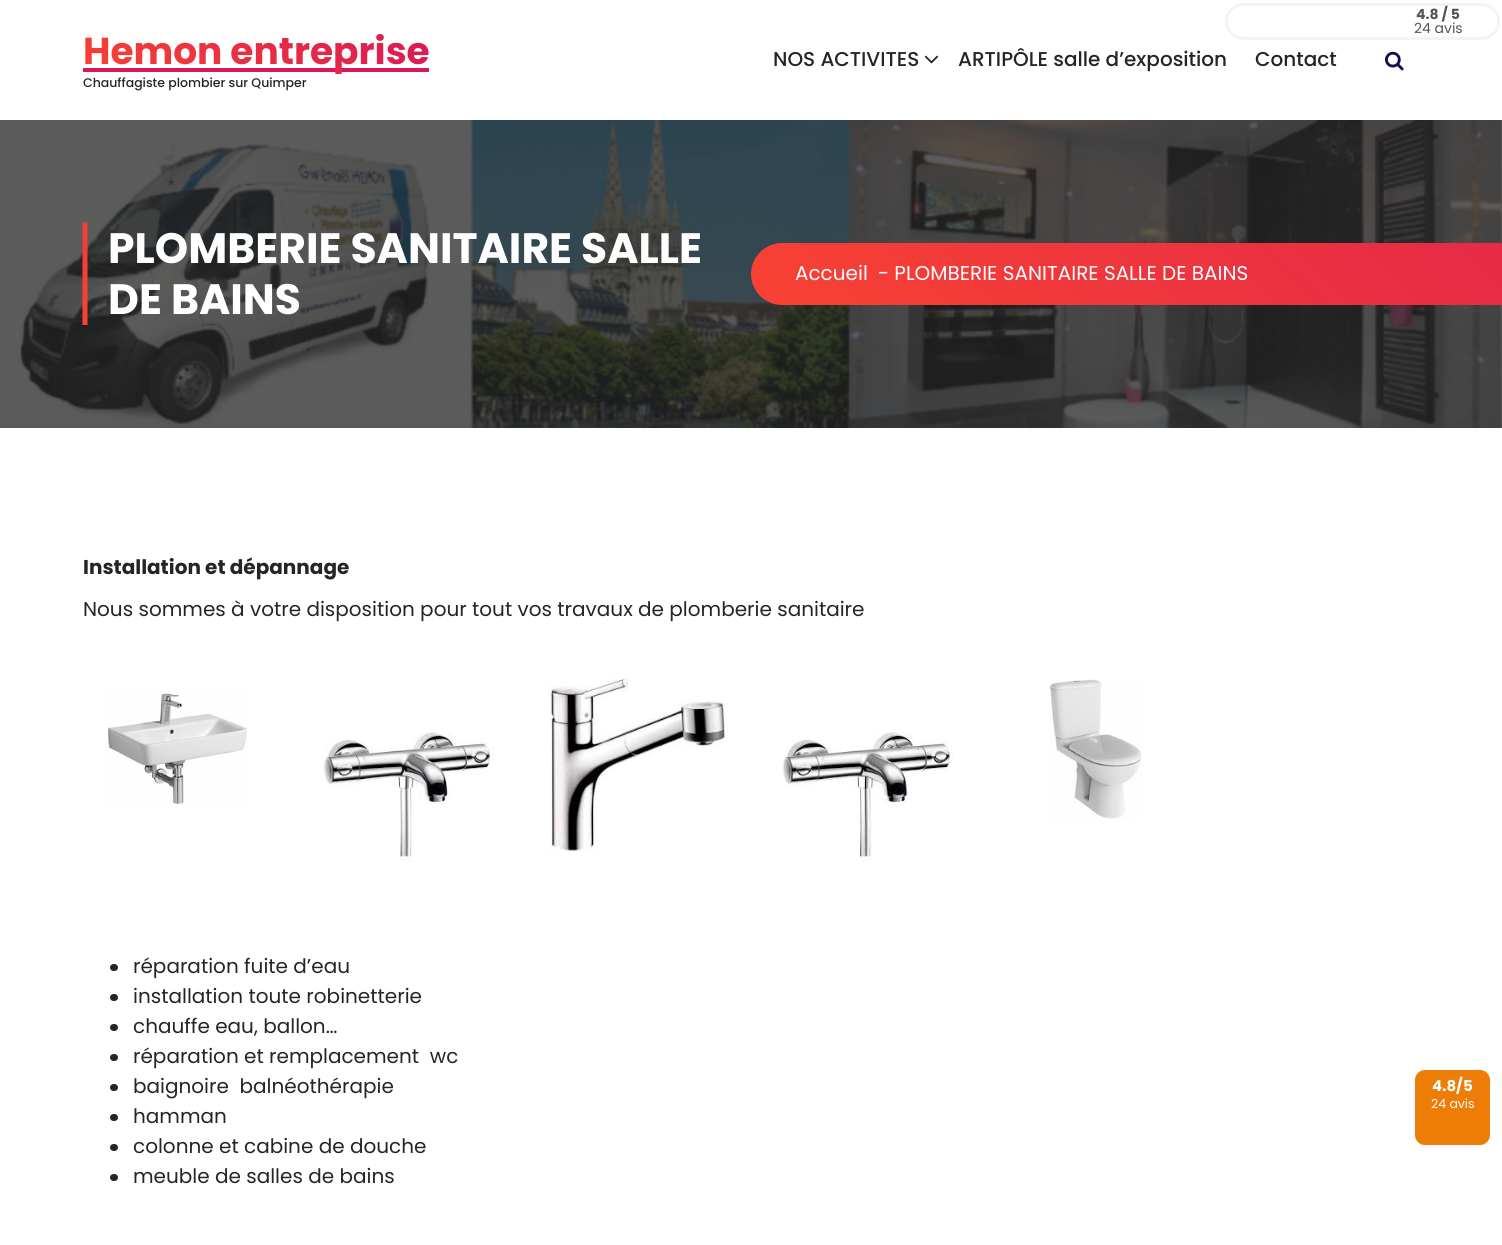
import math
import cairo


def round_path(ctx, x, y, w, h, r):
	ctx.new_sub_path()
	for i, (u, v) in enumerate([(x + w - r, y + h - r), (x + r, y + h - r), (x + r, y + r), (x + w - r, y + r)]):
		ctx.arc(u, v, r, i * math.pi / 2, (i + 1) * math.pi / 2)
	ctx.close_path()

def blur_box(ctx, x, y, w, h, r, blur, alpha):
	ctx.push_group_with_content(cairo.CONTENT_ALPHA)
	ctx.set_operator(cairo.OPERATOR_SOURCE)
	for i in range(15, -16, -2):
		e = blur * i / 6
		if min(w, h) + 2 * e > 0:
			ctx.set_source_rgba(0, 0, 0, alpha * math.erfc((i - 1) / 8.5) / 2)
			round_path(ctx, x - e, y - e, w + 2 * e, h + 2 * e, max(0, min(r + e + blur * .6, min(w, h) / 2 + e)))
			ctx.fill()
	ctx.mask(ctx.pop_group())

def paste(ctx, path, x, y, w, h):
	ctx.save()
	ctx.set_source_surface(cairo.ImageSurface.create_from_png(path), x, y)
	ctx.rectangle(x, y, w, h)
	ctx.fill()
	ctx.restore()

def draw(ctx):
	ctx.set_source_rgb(1, 1, 1)
	ctx.paint()
	round_path(ctx, 1226.5, 4.5, 272, 34, 17)
	ctx.set_source_rgb(0.957, 0.957, 0.957)
	ctx.set_line_width(3)
	ctx.stroke()
	ctx.select_font_face('Poppins', cairo.FONT_SLANT_NORMAL, cairo.FONT_WEIGHT_BOLD)
	ctx.set_font_size(14)
	ctx.set_source_rgb(0.333, 0.333, 0.333)
	ctx.move_to(1416, 19)
	ctx.show_text('4.8 / 5')
	ctx.select_font_face('Poppins')
	ctx.move_to(1414, 33)
	ctx.show_text('24 avis')
	ctx.set_source_rgb(0.847, 0.098, 0.337)
	ctx.rectangle(83, 68, 346, 4)
	ctx.fill()
	ctx.select_font_face('Poppins', cairo.FONT_SLANT_NORMAL, cairo.FONT_WEIGHT_BOLD)
	ctx.set_font_size(37.5)
	gradient = cairo.LinearGradient(348, -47, 164, 150)
	gradient.add_color_stop_rgba(0, 0.847, 0.098, 0.337, 1)
	gradient.add_color_stop_rgba(1, 0.973, 0.259, 0.2, 1)
	ctx.set_source(gradient)
	ctx.move_to(83, 64)
	ctx.show_text('Hemon entreprise')
	ctx.select_font_face('Poppins Medium')
	ctx.set_font_size(12.5)
	ctx.set_source_rgb(0.145, 0.145, 0.145)
	ctx.move_to(83, 87)
	ctx.show_text('Chauffagiste plombier sur Quimper')
	ctx.set_font_size(20)
	ctx.move_to(773, 66)
	ctx.show_text('NOS ACTIVITES')
	paste(ctx, 'media/1.png', 924, 55, 15, 9)
	ctx.move_to(958, 66)
	ctx.show_text('ARTIPÔLE salle d’exposition')
	ctx.move_to(1255, 66)
	ctx.show_text('Contact')
	paste(ctx, 'media/2.png', 1385, 51, 19, 20)
	paste(ctx, 'media/3.png', 0, 120, 1502, 308)
	paste(ctx, 'media/4.png', 82, 222, 6, 103)
	ctx.select_font_face('Poppins', cairo.FONT_SLANT_NORMAL, cairo.FONT_WEIGHT_BOLD)
	ctx.set_font_size(42.5)
	ctx.set_source_rgb(1, 1, 1)
	ctx.move_to(108, 263)
	ctx.show_text('PLOMBERIE SANITAIRE SALLE')
	ctx.move_to(108, 314)
	ctx.show_text('DE BAINS')
	gradient = cairo.LinearGradient(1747, -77, 1093, 624)
	gradient.add_color_stop_rgba(0, 0.847, 0.098, 0.337, 1)
	gradient.add_color_stop_rgba(1, 0.973, 0.259, 0.2, 1)
	ctx.set_source(gradient)
	ctx.new_path()
	ctx.move_to(782, 243)
	ctx.line_to(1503, 243)
	ctx.line_to(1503, 305)
	ctx.line_to(782, 305)
	ctx.curve_to(765, 305, 751, 291, 751, 274)
	ctx.curve_to(751, 257, 765, 243, 782, 243)
	ctx.close_path()
	ctx.fill()
	ctx.select_font_face('Poppins')
	ctx.set_font_size(20)
	ctx.set_source_rgb(1, 1, 1)
	ctx.move_to(795, 280)
	ctx.show_text('Accueil')
	ctx.move_to(878, 280)
	ctx.show_text('- PLOMBERIE SANITAIRE SALLE DE BAINS')
	ctx.set_source_rgb(0.2, 0.2, 0.2)
	blur_box(ctx, 0, 434, 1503, 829, 0, 6, 0.5)
	ctx.set_source_rgb(1, 1, 1)
	ctx.rectangle(0, 428, 1502, 817)
	ctx.fill()
	ctx.select_font_face('Poppins', cairo.FONT_SLANT_NORMAL, cairo.FONT_WEIGHT_BOLD)
	ctx.set_source_rgb(0.145, 0.145, 0.145)
	ctx.move_to(83, 574)
	ctx.show_text('Installation et dépannage')
	ctx.select_font_face('Poppins')
	ctx.move_to(83, 616)
	ctx.show_text('Nous sommes à votre disposition pour tout vos travaux de plomberie sanitaire')
	paste(ctx, 'media/5.png', 107, 691, 140, 113)
	paste(ctx, 'media/6.png', 322, 729, 172, 133)
	paste(ctx, 'media/7.png', 548, 679, 180, 173)
	paste(ctx, 'media/8.png', 782, 729, 172, 133)
	paste(ctx, 'media/9.png', 1049, 679, 93, 140)
	round_path(ctx, 110, 964, 8, 7, 3.5)
	ctx.fill()
	ctx.move_to(133, 973)
	ctx.show_text('réparation fuite d’eau')
	round_path(ctx, 110, 994, 8, 7, 3.5)
	ctx.fill()
	ctx.move_to(133, 1003)
	ctx.show_text('installation toute robinetterie')
	round_path(ctx, 110, 1024, 8, 7, 3.5)
	ctx.fill()
	ctx.move_to(133, 1033)
	ctx.show_text('chauffe eau, ballon…')
	round_path(ctx, 110, 1054, 8, 7, 3.5)
	ctx.fill()
	ctx.move_to(133, 1063)
	ctx.show_text('réparation et remplacement  wc')
	round_path(ctx, 110, 1084, 8, 7, 3.5)
	ctx.fill()
	ctx.move_to(133, 1093)
	ctx.show_text('baignoire  balnéothérapie')
	round_path(ctx, 110, 1114, 8, 7, 3.5)
	ctx.fill()
	ctx.move_to(133, 1123)
	ctx.show_text('hamman')
	round_path(ctx, 110, 1144, 8, 7, 3.5)
	ctx.fill()
	ctx.move_to(133, 1153)
	ctx.show_text('colonne et cabine de douche')
	round_path(ctx, 110, 1174, 8, 7, 3.5)
	ctx.fill()
	ctx.move_to(133, 1183)
	ctx.show_text('meuble de salles de bains')
	ctx.set_source_rgb(0.929, 0.49, 0.024)
	round_path(ctx, 1415.5, 1070.5, 74, 74, 9.5)
	ctx.fill_preserve()
	ctx.set_line_width(1)
	ctx.stroke()
	ctx.select_font_face('Poppins', cairo.FONT_SLANT_NORMAL, cairo.FONT_WEIGHT_BOLD)
	ctx.set_font_size(15)
	ctx.set_source_rgb(1, 1, 1)
	ctx.move_to(1432, 1091)
	ctx.show_text('4.8/5')
	ctx.select_font_face('Poppins')
	ctx.set_font_size(12.5)
	ctx.move_to(1431, 1108)
	ctx.show_text('24 avis')


surface = cairo.ImageSurface(cairo.FORMAT_RGB24, 1502, 1245)
ctx = cairo.Context(surface)
options = cairo.FontOptions()
options.set_hint_metrics(cairo.HINT_METRICS_OFF)
options.set_hint_style(cairo.HINT_STYLE_NONE)
ctx.set_font_options(options)
ctx.set_miter_limit(4)
draw(ctx)
surface.write_to_png('image.png')
